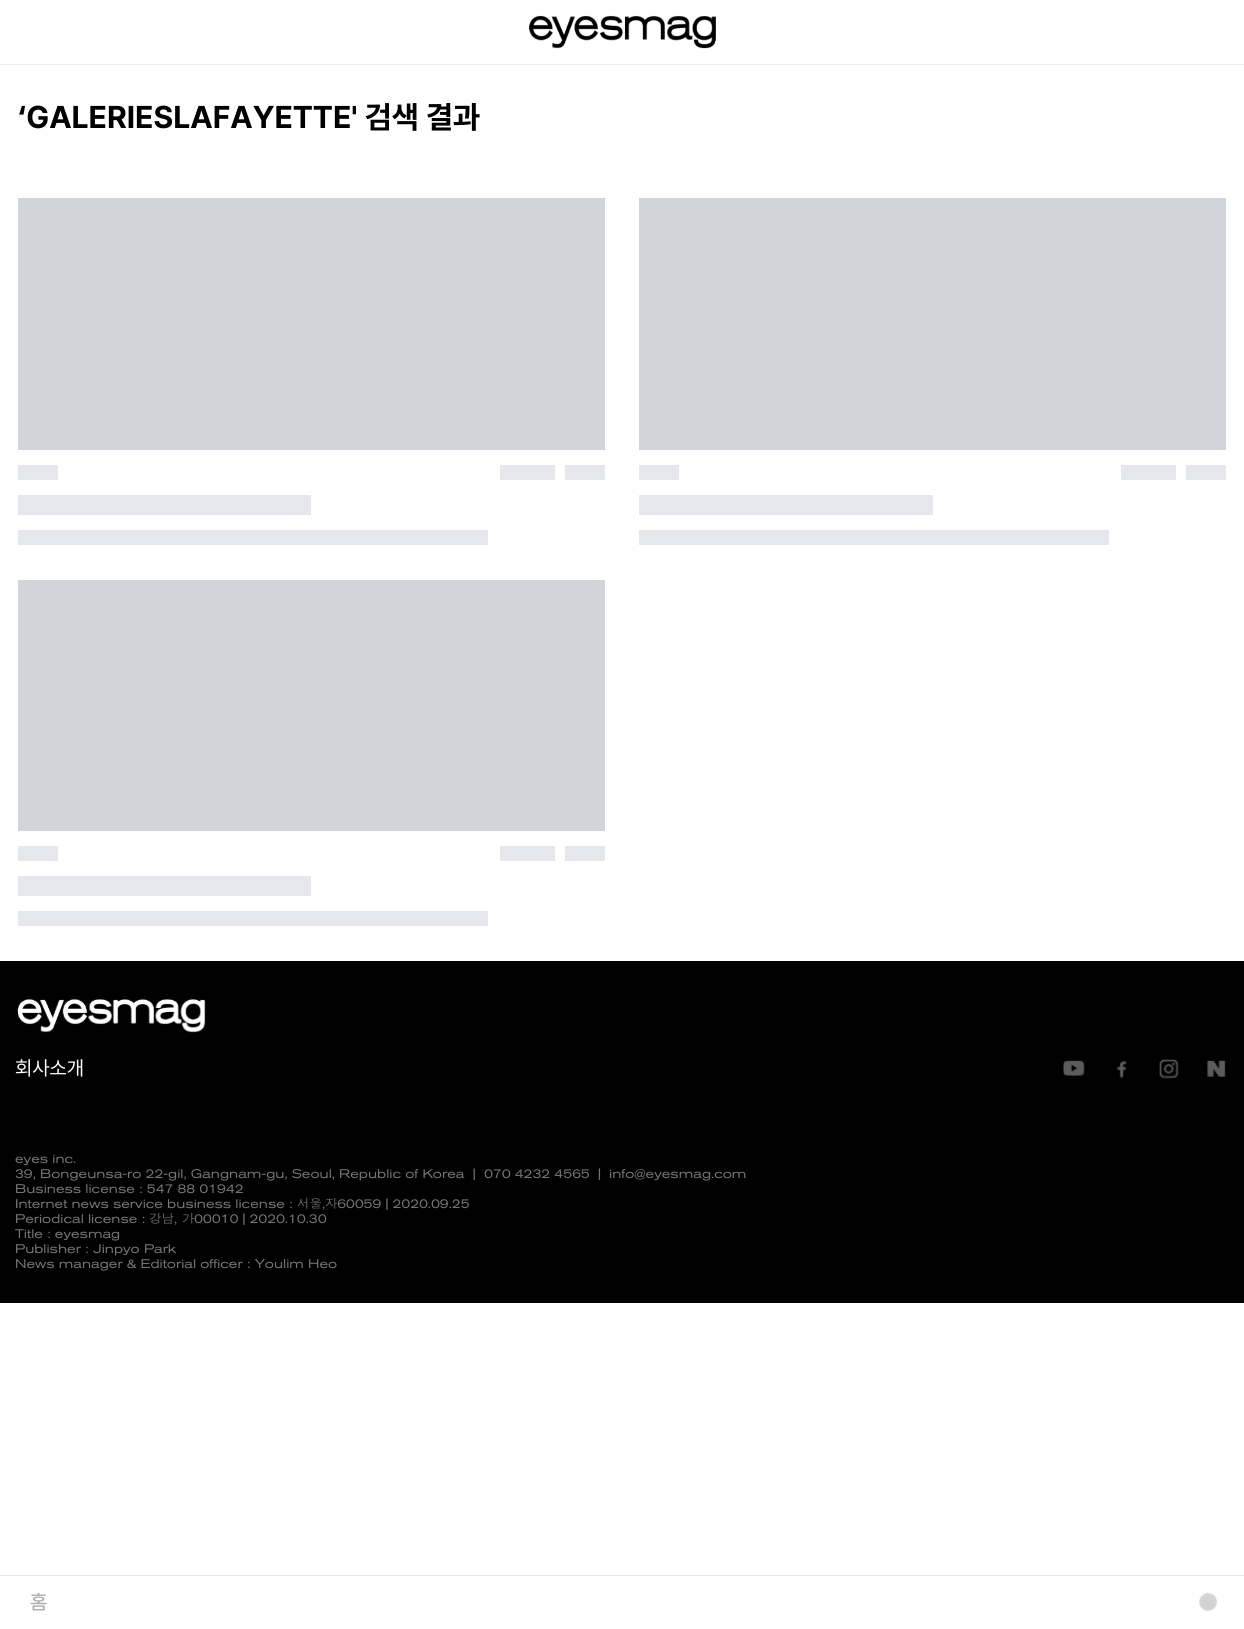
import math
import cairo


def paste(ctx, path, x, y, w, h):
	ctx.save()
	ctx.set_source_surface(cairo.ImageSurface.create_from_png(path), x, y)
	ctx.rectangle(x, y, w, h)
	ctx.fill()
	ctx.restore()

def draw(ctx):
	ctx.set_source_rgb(1, 1, 1)
	ctx.paint()
	ctx.set_source_rgb(0.933, 0.933, 0.933)
	ctx.rectangle(0, 64, 1244, 1)
	ctx.fill()
	paste(ctx, 'media/1.png', 529, 15, 187, 34)
	ctx.select_font_face('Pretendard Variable', cairo.FONT_SLANT_NORMAL, cairo.FONT_WEIGHT_BOLD)
	ctx.set_font_size(31.25)
	ctx.set_source_rgb(0, 0, 0)
	ctx.move_to(18, 128)
	ctx.show_text('‘GALERIESLAFAYETTE\' 검색 결과')
	ctx.set_source_rgb(0.82, 0.835, 0.859)
	ctx.rectangle(18, 198, 587, 252)
	ctx.fill()
	ctx.set_source_rgb(0.898, 0.906, 0.922)
	ctx.rectangle(18, 465, 40, 15)
	ctx.rectangle(500, 465, 55, 15)
	ctx.rectangle(565, 465, 40, 15)
	ctx.rectangle(18, 495, 293, 20)
	ctx.rectangle(18, 530, 470, 15)
	ctx.fill()
	ctx.set_source_rgb(0.82, 0.835, 0.859)
	ctx.rectangle(639, 198, 587, 252)
	ctx.fill()
	ctx.set_source_rgb(0.898, 0.906, 0.922)
	ctx.rectangle(639, 465, 40, 15)
	ctx.rectangle(1121, 465, 55, 15)
	ctx.rectangle(1186, 465, 40, 15)
	ctx.rectangle(639, 495, 294, 20)
	ctx.rectangle(639, 530, 470, 15)
	ctx.fill()
	ctx.set_source_rgb(0.82, 0.835, 0.859)
	ctx.rectangle(18, 580, 587, 251)
	ctx.fill()
	ctx.set_source_rgb(0.898, 0.906, 0.922)
	ctx.rectangle(18, 846, 40, 15)
	ctx.rectangle(500, 846, 55, 15)
	ctx.rectangle(565, 846, 40, 15)
	ctx.rectangle(18, 876, 293, 20)
	ctx.rectangle(18, 911, 470, 15)
	ctx.fill()
	ctx.set_source_rgb(0, 0, 0)
	ctx.rectangle(0, 961, 1244, 342)
	ctx.fill()
	paste(ctx, 'media/2.png', 17, 999, 189, 34)
	ctx.select_font_face('Pretendard Variable')
	ctx.set_font_size(20)
	ctx.set_source_rgb(1, 1, 1)
	ctx.move_to(15, 1075)
	ctx.show_text('회사소개')
	paste(ctx, 'media/3.png', 1063, 1060, 22, 16)
	paste(ctx, 'media/4.png', 1117, 1060, 10, 18)
	paste(ctx, 'media/5.png', 1159, 1059, 20, 20)
	paste(ctx, 'media/6.png', 1207, 1060, 19, 17)
	ctx.select_font_face('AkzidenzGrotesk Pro')
	ctx.set_font_size(12.5)
	ctx.set_source_rgb(0.459, 0.459, 0.459)
	for x, y, s in [
		(15, 1163, 'eyes inc.'),
		(15, 1178, '39, Bongeunsa-ro 22-gil, Gangnam-gu, Seoul, Republic of Korea  |'),
		(484, 1178, '070 4232 4565'),
		(598, 1178, '|'),
		(609, 1178, 'info@eyesmag.com'),
		(15, 1193, 'Business license : 547 88 01942'),
		(15, 1208, 'Internet news service business license :'),
	]:
		ctx.move_to(x, y)
		ctx.show_text(s)
	ctx.select_font_face('Dotum')
	ctx.move_to(297, 1208)
	ctx.show_text('서울')
	ctx.select_font_face('AkzidenzGrotesk Pro')
	ctx.move_to(322, 1208)
	ctx.show_text(',')
	ctx.select_font_face('Dotum')
	ctx.move_to(325, 1208)
	ctx.show_text('자')
	ctx.select_font_face('AkzidenzGrotesk Pro')
	ctx.move_to(337, 1208)
	ctx.show_text('60059 | 2020.09.25')
	ctx.move_to(15, 1223)
	ctx.show_text('Periodical license :')
	ctx.select_font_face('Dotum')
	ctx.move_to(149, 1223)
	ctx.show_text('강남')
	ctx.select_font_face('AkzidenzGrotesk Pro')
	ctx.move_to(174, 1223)
	ctx.show_text(',')
	ctx.select_font_face('Dotum')
	ctx.move_to(182, 1223)
	ctx.show_text('가')
	ctx.select_font_face('AkzidenzGrotesk Pro')
	for x, y, s in [
		(194, 1223, '00010 | 2020.10.30'),
		(15, 1238, 'Title : eyesmag'),
		(15, 1253, 'Publisher : Jinpyo Park'),
		(15, 1268, 'News manager & Editorial officer : Youlim Heo'),
	]:
		ctx.move_to(x, y)
		ctx.show_text(s)
	ctx.set_source_rgb(0.906, 0.906, 0.906)
	ctx.rectangle(0, 1575, 1244, 1)
	ctx.fill()
	ctx.select_font_face('Pretendard Variable Medium')
	ctx.set_font_size(20)
	ctx.set_source_rgb(0.678, 0.678, 0.678)
	ctx.move_to(30, 1609)
	ctx.show_text('홈')
	paste(ctx, 'media/7.png', 1199, 1592, 19, 20)


surface = cairo.ImageSurface(cairo.FORMAT_RGB24, 1244, 1629)
ctx = cairo.Context(surface)
options = cairo.FontOptions()
options.set_hint_metrics(cairo.HINT_METRICS_OFF)
options.set_hint_style(cairo.HINT_STYLE_NONE)
ctx.set_font_options(options)
ctx.set_miter_limit(4)
draw(ctx)
surface.write_to_png('image.png')
